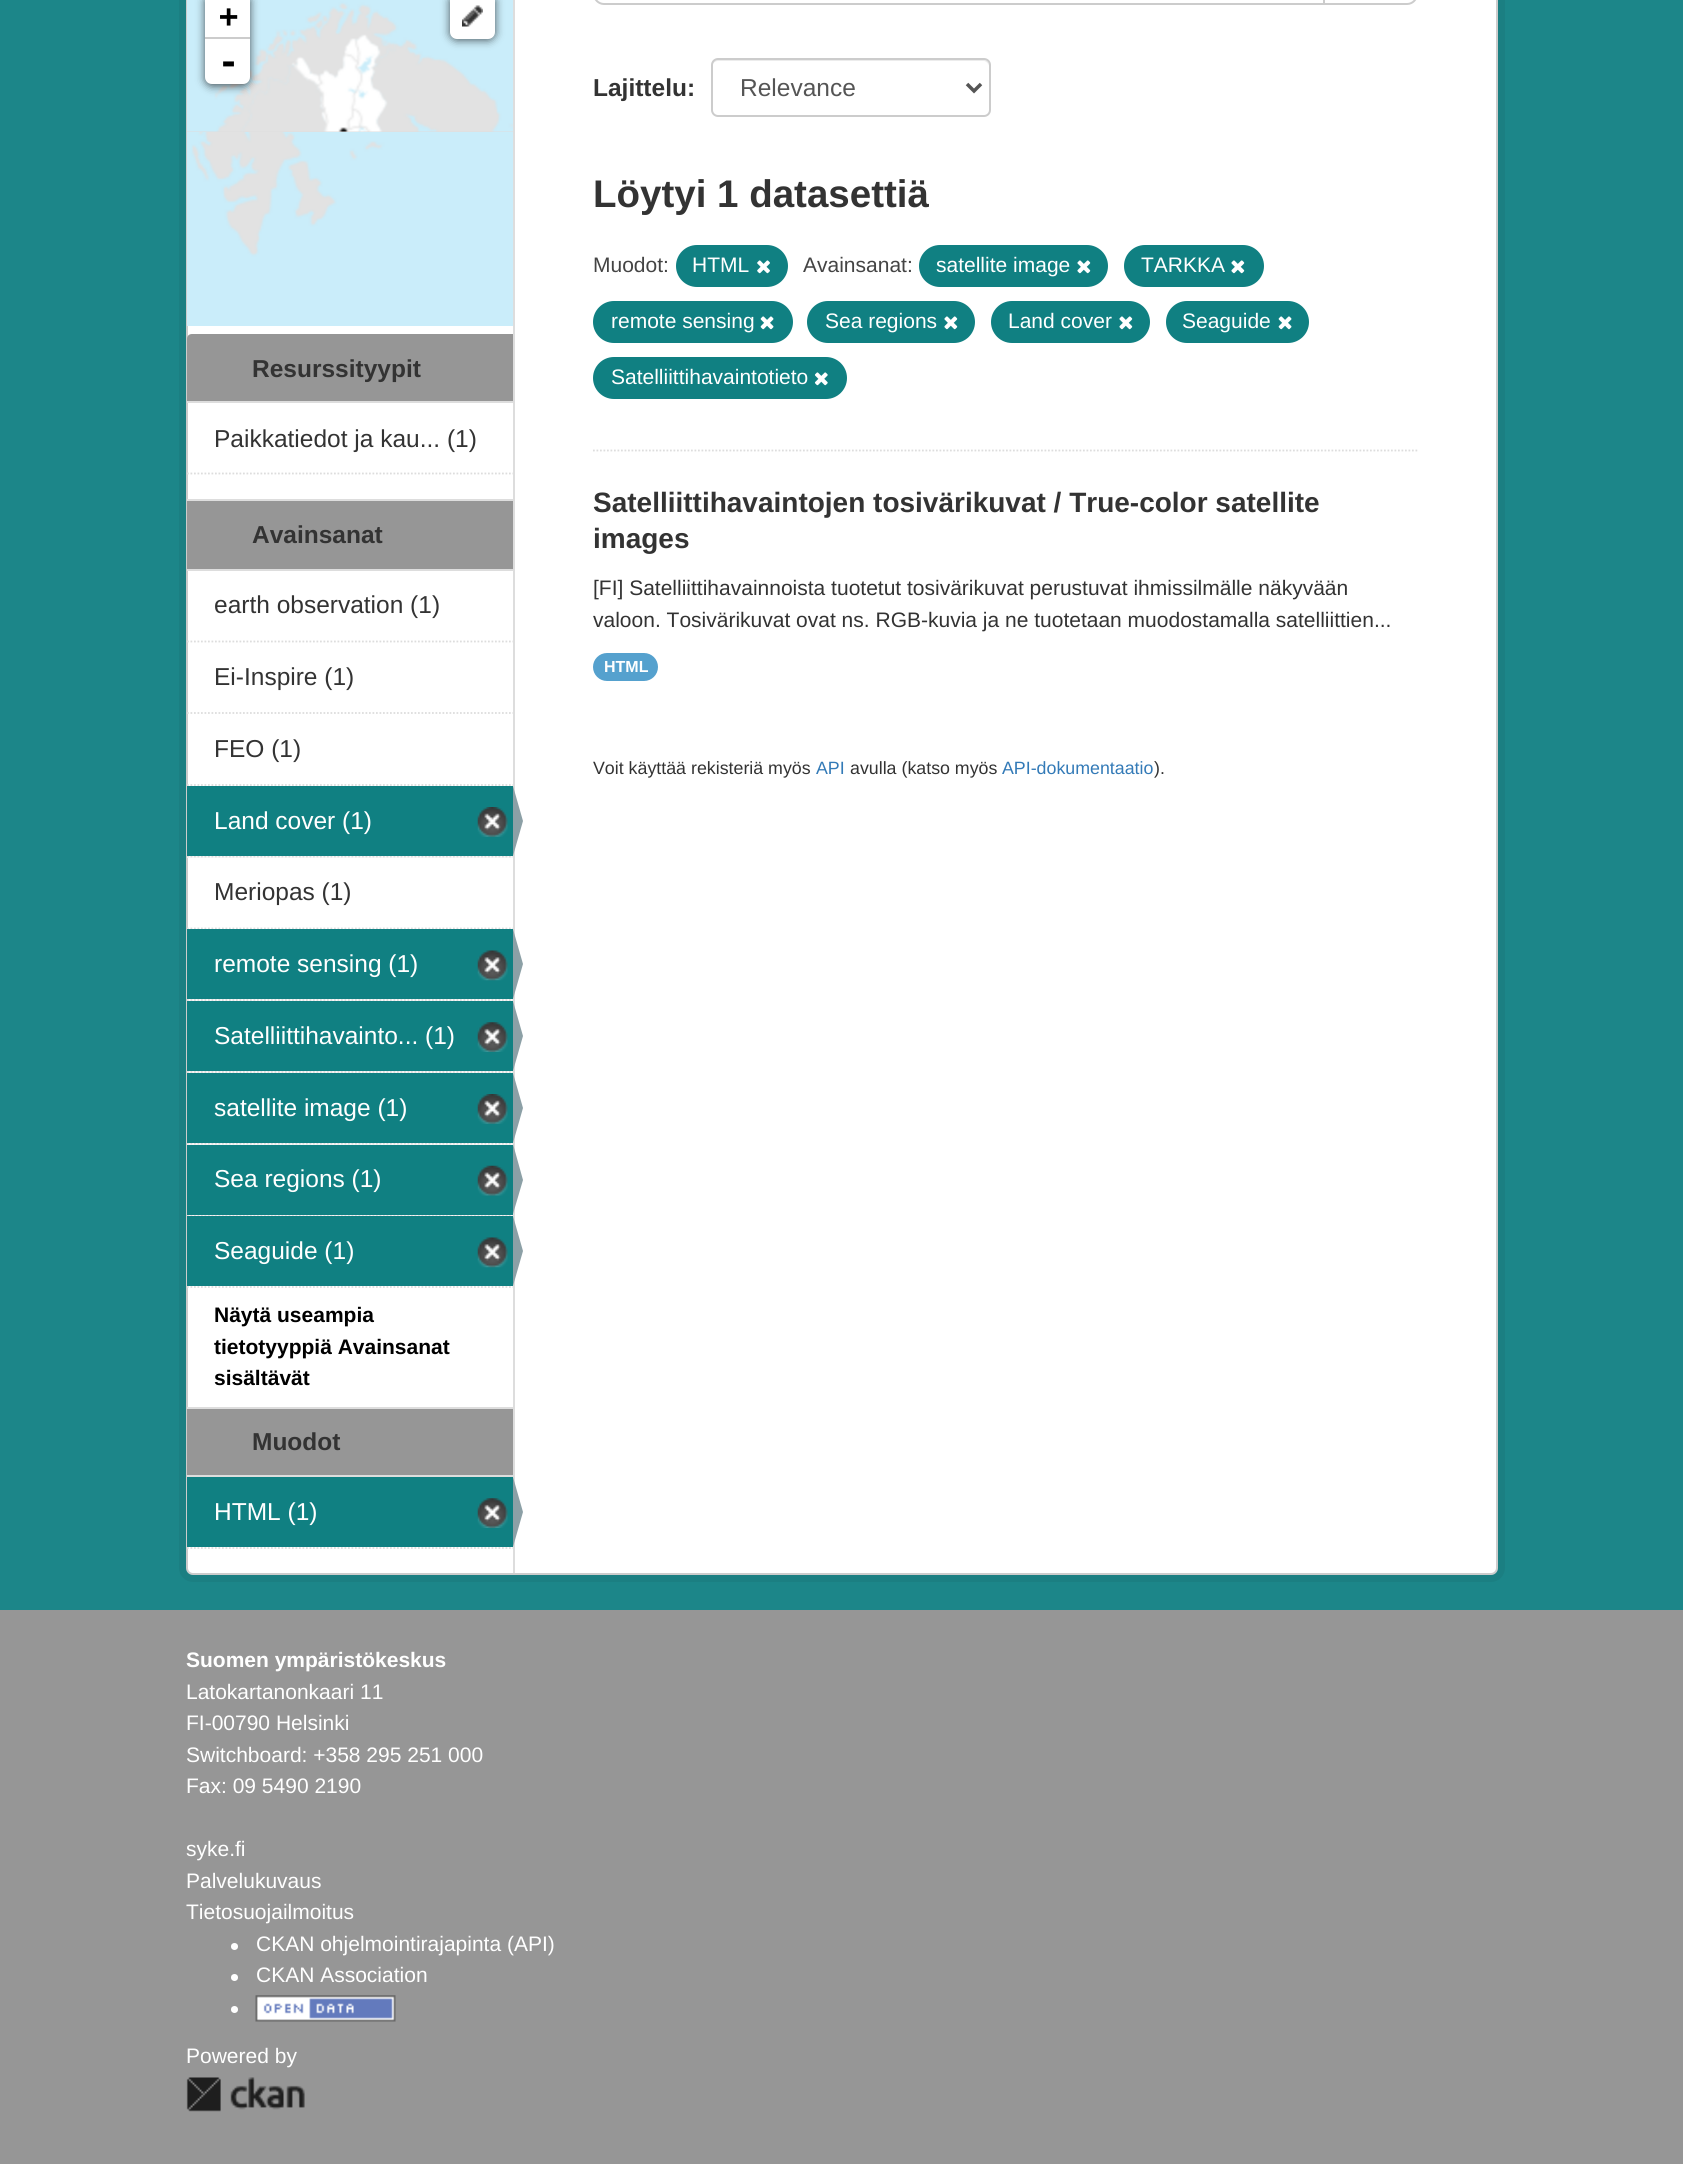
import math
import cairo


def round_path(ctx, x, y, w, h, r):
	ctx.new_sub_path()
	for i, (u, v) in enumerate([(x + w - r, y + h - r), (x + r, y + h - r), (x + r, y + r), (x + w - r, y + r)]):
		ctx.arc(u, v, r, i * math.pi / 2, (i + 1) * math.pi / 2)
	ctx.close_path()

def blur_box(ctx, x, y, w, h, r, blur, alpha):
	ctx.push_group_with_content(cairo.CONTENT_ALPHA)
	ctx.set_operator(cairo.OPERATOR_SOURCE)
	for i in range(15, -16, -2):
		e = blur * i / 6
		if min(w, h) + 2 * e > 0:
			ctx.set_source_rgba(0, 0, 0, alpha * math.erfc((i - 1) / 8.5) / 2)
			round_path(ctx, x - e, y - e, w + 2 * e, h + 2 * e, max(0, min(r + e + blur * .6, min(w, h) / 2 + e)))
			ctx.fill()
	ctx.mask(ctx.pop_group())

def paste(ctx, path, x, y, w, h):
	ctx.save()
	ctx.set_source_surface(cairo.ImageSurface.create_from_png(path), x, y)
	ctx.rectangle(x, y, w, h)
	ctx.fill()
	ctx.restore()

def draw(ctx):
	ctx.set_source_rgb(0.588, 0.588, 0.588)
	ctx.paint()
	ctx.set_source_rgb(0.11, 0.525, 0.537)
	ctx.rectangle(0, 0, 1683, 1610)
	ctx.fill()
	round_path(ctx, 182.5, -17.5, 1319, 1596, 10.5)
	ctx.set_source_rgb(0.106, 0.498, 0.51)
	ctx.set_line_width(7)
	ctx.stroke()
	ctx.set_source_rgb(1, 1, 1)
	round_path(ctx, 187, -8, 1310, 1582, 6)
	ctx.fill_preserve()
	ctx.set_source_rgb(0.8, 0.8, 0.8)
	ctx.set_line_width(2)
	ctx.stroke()
	ctx.set_source_rgb(0.867, 0.867, 0.867)
	ctx.rectangle(187, 131, 326, 1)
	ctx.fill()
	paste(ctx, 'media/1.png', 187, 0, 326, 132)
	paste(ctx, 'media/2.png', 187, 132, 326, 194)
	ctx.set_source_rgb(0, 0, 0)
	blur_box(ctx, 205, -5, 45, 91, 7, 4.5, 0.65)
	ctx.set_source_rgb(1, 1, 1)
	ctx.rectangle(205, 0, 45, 37)
	ctx.fill()
	ctx.set_source_rgb(0.8, 0.8, 0.8)
	ctx.rectangle(205, 37, 45, 2)
	ctx.fill()
	ctx.select_font_face('DejaVu Sans Mono', cairo.FONT_SLANT_NORMAL, cairo.FONT_WEIGHT_BOLD)
	ctx.set_font_size(32)
	ctx.set_source_rgb(0, 0, 0)
	ctx.move_to(219, 27)
	ctx.show_text('+')
	ctx.set_source_rgb(1, 1, 1)
	ctx.new_path()
	ctx.move_to(205, 39)
	ctx.line_to(250, 39)
	ctx.line_to(250, 77)
	ctx.curve_to(250, 81, 247, 84, 243, 84)
	ctx.line_to(212, 84)
	ctx.curve_to(208, 84, 205, 81, 205, 77)
	ctx.close_path()
	ctx.fill()
	ctx.set_font_size(35)
	ctx.set_source_rgb(0, 0, 0)
	ctx.move_to(218, 74)
	ctx.show_text('-')
	ctx.set_source_rgb(0, 0, 0)
	blur_box(ctx, 450, -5, 45, 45, 7, 4.5, 0.65)
	ctx.set_source_rgb(1, 1, 1)
	round_path(ctx, 450, -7, 45, 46, 7)
	ctx.fill()
	paste(ctx, 'media/3.png', 462, 5, 21, 22)
	ctx.set_source_rgb(0.588, 0.588, 0.588)
	ctx.new_path()
	ctx.move_to(192, 334)
	ctx.line_to(513, 334)
	ctx.line_to(513, 403)
	ctx.line_to(187, 403)
	ctx.line_to(187, 339)
	ctx.curve_to(187, 336, 189, 334, 192, 334)
	ctx.close_path()
	ctx.fill()
	ctx.set_source_rgb(0.867, 0.867, 0.867)
	ctx.rectangle(187, 401, 326, 2)
	ctx.fill()
	ctx.select_font_face('Liberation Sans', cairo.FONT_SLANT_NORMAL, cairo.FONT_WEIGHT_BOLD)
	ctx.set_font_size(24.5)
	ctx.set_source_rgb(0.2, 0.2, 0.2)
	ctx.move_to(252, 377)
	ctx.show_text('Resurssityypit')
	ctx.select_font_face('Liberation Sans')
	ctx.move_to(214, 447)
	ctx.show_text('Paikkatiedot ja kau... (1)')
	ctx.new_path()
	ctx.move_to(187, 473.5)
	ctx.line_to(513, 473.5)
	ctx.set_source_rgb(0.867, 0.867, 0.867)
	ctx.set_line_width(1.8)
	ctx.set_dash([1.75, 1.75])
	ctx.stroke()
	ctx.set_source_rgb(0.588, 0.588, 0.588)
	ctx.rectangle(187, 501, 326, 68)
	ctx.fill()
	ctx.set_source_rgb(0.867, 0.867, 0.867)
	ctx.rectangle(187, 499, 326, 2)
	ctx.rectangle(187, 569, 326, 2)
	ctx.fill()
	ctx.select_font_face('Liberation Sans', cairo.FONT_SLANT_NORMAL, cairo.FONT_WEIGHT_BOLD)
	ctx.set_source_rgb(0.2, 0.2, 0.2)
	ctx.move_to(252, 543)
	ctx.show_text('Avainsanat')
	ctx.new_path()
	ctx.move_to(187, 641.5)
	ctx.line_to(513, 641.5)
	ctx.set_source_rgb(0.867, 0.867, 0.867)
	ctx.stroke()
	ctx.select_font_face('Liberation Sans')
	ctx.set_source_rgb(0.2, 0.2, 0.2)
	ctx.move_to(214, 613)
	ctx.show_text('earth observation (1)')
	ctx.new_path()
	ctx.move_to(187, 713)
	ctx.line_to(513, 713)
	ctx.set_source_rgb(0.867, 0.867, 0.867)
	ctx.stroke()
	ctx.set_source_rgb(0.2, 0.2, 0.2)
	ctx.move_to(214, 685)
	ctx.show_text('Ei-Inspire (1)')
	ctx.new_path()
	ctx.move_to(187, 785)
	ctx.line_to(513, 785)
	ctx.set_source_rgb(0.867, 0.867, 0.867)
	ctx.stroke()
	ctx.set_source_rgb(0.2, 0.2, 0.2)
	ctx.move_to(214, 757)
	ctx.show_text('FEO (1)')
	ctx.set_source_rgb(0.965, 0.965, 0.965)
	ctx.rectangle(187, 856, 326, 2)
	ctx.fill()
	ctx.new_path()
	ctx.move_to(187, 856.5)
	ctx.line_to(513, 856.5)
	ctx.set_source_rgb(0.867, 0.867, 0.867)
	ctx.stroke()
	ctx.set_source_rgb(0.063, 0.502, 0.51)
	ctx.rectangle(187, 786, 326, 70)
	ctx.fill()
	ctx.set_source_rgb(1, 1, 1)
	ctx.move_to(214, 829)
	ctx.show_text('Land cover (1)')
	paste(ctx, 'media/4.png', 477, 807, 31, 30)
	ctx.set_source_rgb(0.867, 0.867, 0.867)
	ctx.rectangle(513, 0, 2, 1573)
	ctx.fill()
	ctx.set_source_rgb(0.549, 0.627, 0.651)
	ctx.new_path()
	ctx.move_to(513, 856)
	ctx.line_to(513, 786)
	ctx.line_to(523, 821)
	ctx.close_path()
	ctx.fill()
	ctx.new_path()
	ctx.move_to(187, 928.5)
	ctx.line_to(513, 928.5)
	ctx.set_source_rgb(0.867, 0.867, 0.867)
	ctx.stroke()
	ctx.set_source_rgb(0.2, 0.2, 0.2)
	ctx.move_to(214, 900)
	ctx.show_text('Meriopas (1)')
	ctx.set_source_rgb(0.965, 0.965, 0.965)
	ctx.rectangle(187, 999, 326, 2)
	ctx.fill()
	ctx.new_path()
	ctx.move_to(187, 1000)
	ctx.line_to(513, 1000)
	ctx.set_source_rgb(0.867, 0.867, 0.867)
	ctx.stroke()
	ctx.set_source_rgb(0.063, 0.502, 0.51)
	ctx.rectangle(187, 929, 326, 70)
	ctx.fill()
	ctx.set_source_rgb(1, 1, 1)
	ctx.move_to(214, 972)
	ctx.show_text('remote sensing (1)')
	paste(ctx, 'media/5.png', 477, 950, 31, 31)
	ctx.set_source_rgb(0.549, 0.627, 0.651)
	ctx.new_path()
	ctx.move_to(513, 999)
	ctx.line_to(513, 929)
	ctx.line_to(523, 964)
	ctx.close_path()
	ctx.fill()
	ctx.set_source_rgb(0.965, 0.965, 0.965)
	ctx.rectangle(187, 1071, 326, 2)
	ctx.fill()
	ctx.new_path()
	ctx.move_to(187, 1072)
	ctx.line_to(513, 1072)
	ctx.set_source_rgb(0.867, 0.867, 0.867)
	ctx.stroke()
	ctx.set_source_rgb(0.063, 0.502, 0.51)
	ctx.rectangle(187, 1001, 326, 70)
	ctx.fill()
	ctx.set_source_rgb(1, 1, 1)
	ctx.move_to(214, 1044)
	ctx.show_text('Satelliittihavainto... (1)')
	paste(ctx, 'media/6.png', 477, 1022, 31, 30)
	ctx.set_source_rgb(0.549, 0.627, 0.651)
	ctx.new_path()
	ctx.move_to(513, 1071)
	ctx.line_to(513, 1001)
	ctx.line_to(523, 1036)
	ctx.close_path()
	ctx.fill()
	ctx.set_source_rgb(0.965, 0.965, 0.965)
	ctx.rectangle(187, 1143, 326, 2)
	ctx.fill()
	ctx.new_path()
	ctx.move_to(187, 1143.5)
	ctx.line_to(513, 1143.5)
	ctx.set_source_rgb(0.867, 0.867, 0.867)
	ctx.stroke()
	ctx.set_source_rgb(0.063, 0.502, 0.51)
	ctx.rectangle(187, 1073, 326, 70)
	ctx.fill()
	ctx.set_source_rgb(1, 1, 1)
	ctx.move_to(214, 1116)
	ctx.show_text('satellite image (1)')
	paste(ctx, 'media/4.png', 477, 1094, 31, 30)
	ctx.set_source_rgb(0.549, 0.627, 0.651)
	ctx.new_path()
	ctx.move_to(513, 1143)
	ctx.line_to(513, 1073)
	ctx.line_to(523, 1108)
	ctx.close_path()
	ctx.fill()
	ctx.set_source_rgb(0.965, 0.965, 0.965)
	ctx.rectangle(188, 1215, 325, 1)
	ctx.fill()
	ctx.new_path()
	ctx.move_to(187, 1215.5)
	ctx.line_to(513, 1215.5)
	ctx.set_source_rgb(0.867, 0.867, 0.867)
	ctx.stroke()
	ctx.set_source_rgb(0.063, 0.502, 0.51)
	ctx.rectangle(187, 1145, 326, 70)
	ctx.fill()
	ctx.set_source_rgb(1, 1, 1)
	ctx.move_to(214, 1187)
	ctx.show_text('Sea regions (1)')
	paste(ctx, 'media/7.png', 477, 1165, 31, 31)
	ctx.set_source_rgb(0.549, 0.627, 0.651)
	ctx.new_path()
	ctx.move_to(513, 1214)
	ctx.line_to(513, 1144)
	ctx.line_to(523, 1180)
	ctx.close_path()
	ctx.fill()
	ctx.set_source_rgb(0.063, 0.502, 0.51)
	ctx.rectangle(187, 1216, 326, 70)
	ctx.fill()
	ctx.set_source_rgb(1, 1, 1)
	ctx.move_to(214, 1259)
	ctx.show_text('Seaguide (1)')
	paste(ctx, 'media/5.png', 477, 1237, 31, 31)
	ctx.set_source_rgb(0.549, 0.627, 0.651)
	ctx.new_path()
	ctx.move_to(513, 1286)
	ctx.line_to(513, 1216)
	ctx.line_to(523, 1251)
	ctx.close_path()
	ctx.fill()
	ctx.new_path()
	ctx.move_to(187, 1287)
	ctx.line_to(513, 1287)
	ctx.set_source_rgb(0.867, 0.867, 0.867)
	ctx.stroke()
	ctx.select_font_face('Liberation Sans', cairo.FONT_SLANT_NORMAL, cairo.FONT_WEIGHT_BOLD)
	ctx.set_font_size(21)
	ctx.set_source_rgb(0, 0, 0)
	for x, y, s in [
		(214, 1322, 'Näytä useampia'),
		(214, 1354, 'tietotyyppiä Avainsanat'),
		(214, 1385, 'sisältävät'),
	]:
		ctx.move_to(x, y)
		ctx.show_text(s)
	ctx.set_source_rgb(0.588, 0.588, 0.588)
	ctx.rectangle(187, 1409, 326, 66)
	ctx.fill()
	ctx.set_source_rgb(0.867, 0.867, 0.867)
	ctx.rectangle(187, 1407, 326, 2)
	ctx.rectangle(187, 1475, 326, 2)
	ctx.fill()
	ctx.set_font_size(24.5)
	ctx.set_source_rgb(0.2, 0.2, 0.2)
	ctx.move_to(252, 1450)
	ctx.show_text('Muodot')
	ctx.set_source_rgb(0.063, 0.502, 0.51)
	ctx.rectangle(187, 1477, 326, 70)
	ctx.fill()
	ctx.select_font_face('Liberation Sans')
	ctx.set_source_rgb(1, 1, 1)
	ctx.move_to(214, 1520)
	ctx.show_text('HTML (1)')
	paste(ctx, 'media/6.png', 477, 1498, 31, 30)
	ctx.set_source_rgb(0.549, 0.627, 0.651)
	ctx.new_path()
	ctx.move_to(513, 1547)
	ctx.line_to(513, 1477)
	ctx.line_to(523, 1512)
	ctx.close_path()
	ctx.fill()
	ctx.new_path()
	ctx.move_to(187, 1548)
	ctx.line_to(513, 1548)
	ctx.set_source_rgb(0.867, 0.867, 0.867)
	ctx.stroke()
	ctx.new_path()
	ctx.move_to(593, 450.5)
	ctx.line_to(1417.5, 450.5)
	ctx.stroke()
	ctx.new_path()
	ctx.move_to(604, -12)
	ctx.line_to(1324, -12)
	ctx.line_to(1324, 4)
	ctx.line_to(604, 4)
	ctx.curve_to(598.5, 4, 594, -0.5, 594, -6)
	ctx.line_to(594, -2)
	ctx.curve_to(594, -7.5, 598.5, -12, 604, -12)
	ctx.close_path()
	ctx.set_source_rgb(0.8, 0.8, 0.8)
	ctx.set_line_width(2)
	ctx.set_dash([])
	ctx.stroke()
	ctx.set_source_rgb(1, 1, 1)
	ctx.new_path()
	ctx.move_to(1324, -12)
	ctx.line_to(1407, -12)
	ctx.curve_to(1412.5, -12, 1417, -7.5, 1417, -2)
	ctx.line_to(1417, -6)
	ctx.curve_to(1417, -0.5, 1412.5, 4, 1407, 4)
	ctx.line_to(1324, 4)
	ctx.close_path()
	ctx.fill_preserve()
	ctx.set_source_rgb(0.8, 0.8, 0.8)
	ctx.stroke()
	ctx.select_font_face('Liberation Sans', cairo.FONT_SLANT_NORMAL, cairo.FONT_WEIGHT_BOLD)
	ctx.set_source_rgb(0.2, 0.2, 0.2)
	ctx.move_to(593, 96)
	ctx.show_text('Lajittelu:')
	ctx.set_source_rgb(0.925, 0.925, 0.925)
	ctx.new_path()
	ctx.move_to(718, 61)
	ctx.line_to(984, 61)
	ctx.curve_to(986, 61, 989, 64, 989, 66)
	ctx.line_to(989, 65)
	ctx.curve_to(989, 62, 987, 60, 984, 60)
	ctx.line_to(717, 60)
	ctx.curve_to(714, 60, 712, 62, 712, 65)
	ctx.line_to(712, 66)
	ctx.curve_to(712, 64, 715, 61, 718, 61)
	ctx.close_path()
	ctx.fill()
	round_path(ctx, 712, 59, 278, 57, 6)
	ctx.set_source_rgb(0.8, 0.8, 0.8)
	ctx.stroke()
	ctx.new_path()
	ctx.move_to(967, 84)
	ctx.line_to(974, 91)
	ctx.line_to(981, 84)
	ctx.set_source_rgb(0.333, 0.333, 0.333)
	ctx.set_line_width(3.5)
	ctx.stroke()
	ctx.select_font_face('Liberation Sans')
	ctx.move_to(740, 96)
	ctx.show_text('Relevance')
	ctx.select_font_face('Liberation Sans', cairo.FONT_SLANT_NORMAL, cairo.FONT_WEIGHT_BOLD)
	ctx.set_font_size(38.5)
	ctx.set_source_rgb(0.2, 0.2, 0.2)
	ctx.move_to(593, 207)
	ctx.show_text('Löytyi 1 datasettiä')
	ctx.select_font_face('Liberation Sans')
	ctx.set_font_size(21)
	ctx.set_source_rgb(0.267, 0.267, 0.267)
	ctx.move_to(593, 272)
	ctx.show_text('Muodot:')
	ctx.set_source_rgb(0.063, 0.502, 0.51)
	round_path(ctx, 676, 245, 112, 42, 21)
	ctx.fill()
	ctx.set_source_rgb(1, 1, 1)
	ctx.move_to(692, 272)
	ctx.show_text('HTML')
	paste(ctx, 'media/8.png', 757, 260, 13, 14)
	ctx.set_source_rgb(0.267, 0.267, 0.267)
	ctx.move_to(803, 272)
	ctx.show_text('Avainsanat:')
	ctx.set_source_rgb(0.063, 0.502, 0.51)
	round_path(ctx, 919, 245, 189, 42, 21)
	ctx.fill()
	ctx.set_source_rgb(1, 1, 1)
	ctx.move_to(936, 272)
	ctx.show_text('satellite image')
	paste(ctx, 'media/9.png', 1077, 260, 14, 14)
	ctx.set_source_rgb(0.063, 0.502, 0.51)
	round_path(ctx, 1124, 245, 140, 42, 21)
	ctx.fill()
	ctx.set_source_rgb(1, 1, 1)
	ctx.move_to(1141, 272)
	ctx.show_text('TARKKA')
	paste(ctx, 'media/9.png', 1231, 260, 14, 14)
	ctx.set_source_rgb(0.063, 0.502, 0.51)
	round_path(ctx, 593, 301, 200, 42, 21)
	ctx.fill()
	ctx.set_source_rgb(1, 1, 1)
	ctx.move_to(611, 328)
	ctx.show_text('remote sensing')
	paste(ctx, 'media/10.png', 760, 316, 14, 14)
	ctx.set_source_rgb(0.063, 0.502, 0.51)
	round_path(ctx, 807, 301, 168, 42, 21)
	ctx.fill()
	ctx.set_source_rgb(1, 1, 1)
	ctx.move_to(825, 328)
	ctx.show_text('Sea regions')
	paste(ctx, 'media/11.png', 944, 316, 14, 14)
	ctx.set_source_rgb(0.063, 0.502, 0.51)
	round_path(ctx, 991, 301, 159, 42, 21)
	ctx.fill()
	ctx.set_source_rgb(1, 1, 1)
	ctx.move_to(1008, 328)
	ctx.show_text('Land cover')
	paste(ctx, 'media/9.png', 1119, 316, 14, 14)
	ctx.set_source_rgb(0.063, 0.502, 0.51)
	round_path(ctx, 1166, 301, 143, 42, 21)
	ctx.fill()
	ctx.set_source_rgb(1, 1, 1)
	ctx.move_to(1182, 328)
	ctx.show_text('Seaguide')
	paste(ctx, 'media/10.png', 1278, 316, 14, 14)
	ctx.set_source_rgb(0.063, 0.502, 0.51)
	round_path(ctx, 593, 357, 254, 42, 21)
	ctx.fill()
	ctx.set_source_rgb(1, 1, 1)
	ctx.move_to(611, 384)
	ctx.show_text('Satelliittihavaintotieto')
	paste(ctx, 'media/12.png', 814, 372, 14, 14)
	ctx.select_font_face('Liberation Sans', cairo.FONT_SLANT_NORMAL, cairo.FONT_WEIGHT_BOLD)
	ctx.set_font_size(28)
	ctx.set_source_rgb(0.2, 0.2, 0.2)
	ctx.move_to(593, 512)
	ctx.show_text('Satelliittihavaintojen tosivärikuvat / True-color satellite')
	ctx.move_to(593, 548)
	ctx.show_text('images')
	ctx.select_font_face('Liberation Sans')
	ctx.set_font_size(21)
	ctx.move_to(593, 595)
	ctx.show_text('[FI] Satelliittihavainnoista tuotetut tosivärikuvat perustuvat ihmissilmälle näkyvään')
	ctx.move_to(593, 627)
	ctx.show_text('valoon. Tosivärikuvat ovat ns. RGB-kuvia ja ne tuotetaan muodostamalla satelliittien...')
	ctx.set_source_rgb(0.333, 0.631, 0.808)
	round_path(ctx, 593, 653, 65, 28, 14)
	ctx.fill()
	ctx.select_font_face('Liberation Sans', cairo.FONT_SLANT_NORMAL, cairo.FONT_WEIGHT_BOLD)
	ctx.set_font_size(16)
	ctx.set_source_rgb(1, 1, 1)
	ctx.move_to(604, 672)
	ctx.show_text('HTML')
	ctx.select_font_face('Liberation Sans')
	ctx.set_font_size(17.8)
	ctx.set_source_rgb(0.2, 0.2, 0.2)
	ctx.move_to(593, 774)
	ctx.show_text('Voit käyttää rekisteriä myös')
	ctx.set_source_rgb(0.2, 0.478, 0.718)
	ctx.move_to(816, 774)
	ctx.show_text('API')
	ctx.set_source_rgb(0.2, 0.2, 0.2)
	ctx.move_to(850, 774)
	ctx.show_text('avulla (katso myös')
	ctx.set_source_rgb(0.2, 0.478, 0.718)
	ctx.move_to(1002, 774)
	ctx.show_text('API-dokumentaatio')
	ctx.set_source_rgb(0.2, 0.2, 0.2)
	ctx.move_to(1154, 774)
	ctx.show_text(').')
	ctx.select_font_face('Liberation Sans', cairo.FONT_SLANT_NORMAL, cairo.FONT_WEIGHT_BOLD)
	ctx.set_font_size(21)
	ctx.set_source_rgb(1, 1, 1)
	ctx.move_to(186, 1667)
	ctx.show_text('Suomen ympäristökeskus')
	ctx.select_font_face('Liberation Sans')
	for x, y, s in [
		(186, 1699, 'Latokartanonkaari 11'),
		(186, 1730, 'FI-00790 Helsinki'),
		(186, 1762, 'Switchboard: +358 295 251 000'),
		(186, 1793, 'Fax: 09 5490 2190'),
		(186, 1856, 'syke.fi'),
		(186, 1888, 'Palvelukuvaus'),
		(186, 1919, 'Tietosuojailmoitus'),
	]:
		ctx.move_to(x, y)
		ctx.show_text(s)
	ctx.new_path()
	ctx.arc(234.5, 1946.5, 3.5, 0, 2 * math.pi)
	ctx.fill()
	ctx.move_to(256, 1951)
	ctx.show_text('CKAN ohjelmointirajapinta (API)')
	ctx.new_path()
	ctx.arc(234.5, 1977.5, 3.5, 0, 2 * math.pi)
	ctx.fill()
	ctx.move_to(256, 1982)
	ctx.show_text('CKAN Association')
	ctx.new_path()
	ctx.arc(234.5, 2009.5, 3.5, 0, 2 * math.pi)
	ctx.fill()
	paste(ctx, 'media/13.png', 255, 1995, 141, 27)
	ctx.move_to(186, 2063)
	ctx.show_text('Powered by')
	paste(ctx, 'media/14.png', 186, 2077, 119, 35)


surface = cairo.ImageSurface(cairo.FORMAT_RGB24, 1683, 2164)
ctx = cairo.Context(surface)
options = cairo.FontOptions()
options.set_hint_metrics(cairo.HINT_METRICS_OFF)
options.set_hint_style(cairo.HINT_STYLE_NONE)
ctx.set_font_options(options)
ctx.set_miter_limit(4)
draw(ctx)
surface.write_to_png('image.png')
